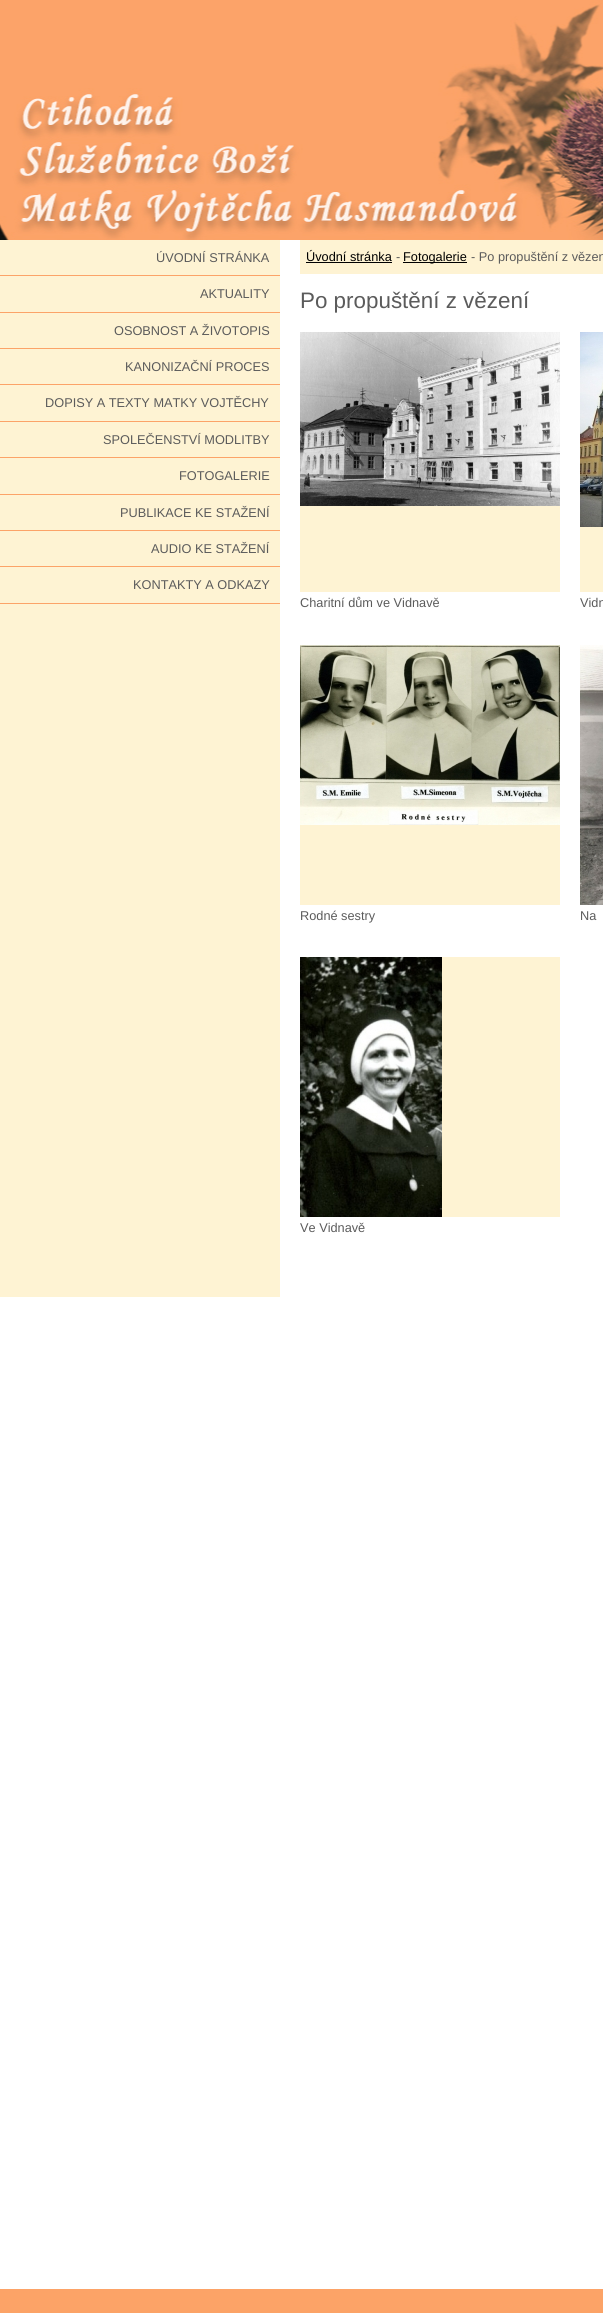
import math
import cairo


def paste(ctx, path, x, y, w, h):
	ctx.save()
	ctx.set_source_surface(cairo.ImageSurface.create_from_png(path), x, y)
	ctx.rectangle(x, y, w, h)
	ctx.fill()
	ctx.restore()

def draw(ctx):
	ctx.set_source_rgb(1, 1, 1)
	ctx.paint()
	paste(ctx, 'media/1.png', 0, 0, 603, 240)
	ctx.set_source_rgb(0.996, 0.953, 0.827)
	ctx.rectangle(0, 240, 280, 1057)
	ctx.fill()
	ctx.set_source_rgb(0.988, 0.639, 0.408)
	ctx.rectangle(0, 275, 280, 1)
	ctx.fill()
	ctx.select_font_face('Liberation Sans')
	ctx.set_font_size(12.75)
	ctx.set_source_rgb(0.357, 0.357, 0.357)
	ctx.move_to(156, 262)
	ctx.show_text('ÚVODNÍ STRÁNKA')
	ctx.set_source_rgb(0.988, 0.639, 0.408)
	ctx.rectangle(0, 312, 280, 1)
	ctx.fill()
	ctx.set_source_rgb(0.357, 0.357, 0.357)
	ctx.move_to(200, 298)
	ctx.show_text('AKTUALITY')
	ctx.set_source_rgb(0.988, 0.639, 0.408)
	ctx.rectangle(0, 348, 280, 1)
	ctx.fill()
	ctx.set_source_rgb(0.357, 0.357, 0.357)
	ctx.move_to(114, 335)
	ctx.show_text('OSOBNOST A ŽIVOTOPIS')
	ctx.set_source_rgb(0.988, 0.639, 0.408)
	ctx.rectangle(0, 384, 280, 1)
	ctx.fill()
	ctx.set_source_rgb(0.357, 0.357, 0.357)
	ctx.move_to(125, 371)
	ctx.show_text('KANONIZAČNÍ PROCES')
	ctx.set_source_rgb(0.988, 0.639, 0.408)
	ctx.rectangle(0, 421, 280, 1)
	ctx.fill()
	ctx.set_source_rgb(0.357, 0.357, 0.357)
	ctx.move_to(45, 407)
	ctx.show_text('DOPISY A TEXTY MATKY VOJTĚCHY')
	ctx.set_source_rgb(0.988, 0.639, 0.408)
	ctx.rectangle(0, 457, 280, 1)
	ctx.fill()
	ctx.set_source_rgb(0.357, 0.357, 0.357)
	ctx.move_to(103, 444)
	ctx.show_text('SPOLEČENSTVÍ MODLITBY')
	ctx.set_source_rgb(0.988, 0.639, 0.408)
	ctx.rectangle(0, 494, 280, 1)
	ctx.fill()
	ctx.set_source_rgb(0.357, 0.357, 0.357)
	ctx.move_to(179, 480)
	ctx.show_text('FOTOGALERIE')
	ctx.set_source_rgb(0.988, 0.639, 0.408)
	ctx.rectangle(0, 530, 280, 1)
	ctx.fill()
	ctx.set_source_rgb(0.357, 0.357, 0.357)
	ctx.move_to(120, 517)
	ctx.show_text('PUBLIKACE KE STAŽENÍ')
	ctx.set_source_rgb(0.988, 0.639, 0.408)
	ctx.rectangle(0, 566, 280, 1)
	ctx.fill()
	ctx.set_source_rgb(0.357, 0.357, 0.357)
	ctx.move_to(151, 553)
	ctx.show_text('AUDIO KE STAŽENÍ')
	ctx.set_source_rgb(0.988, 0.639, 0.408)
	ctx.rectangle(0, 603, 280, 1)
	ctx.fill()
	ctx.set_source_rgb(0.357, 0.357, 0.357)
	ctx.move_to(133, 589)
	ctx.show_text('KONTAKTY A ODKAZY')
	ctx.set_source_rgb(0.996, 0.953, 0.827)
	ctx.rectangle(300, 240, 303, 34)
	ctx.fill()
	ctx.set_source_rgb(0, 0, 0)
	ctx.move_to(306, 261)
	ctx.show_text('Úvodní stránka')
	ctx.set_source_rgb(0.357, 0.357, 0.357)
	ctx.move_to(396, 261)
	ctx.show_text('-')
	ctx.set_source_rgb(0, 0, 0)
	ctx.rectangle(306, 262, 86, 1)
	ctx.fill()
	ctx.rectangle(403, 262, 64, 1)
	ctx.fill()
	ctx.move_to(403, 261)
	ctx.show_text('Fotogalerie')
	ctx.set_source_rgb(0.357, 0.357, 0.357)
	ctx.move_to(471, 261)
	ctx.show_text('- Po propuštění z vězen')
	ctx.set_font_size(22.4)
	ctx.move_to(300, 308)
	ctx.show_text('Po propuštění z vězení')
	ctx.set_source_rgb(0.996, 0.953, 0.827)
	ctx.rectangle(300, 506, 260, 86)
	ctx.fill()
	paste(ctx, 'media/2.png', 300, 332, 260, 174)
	ctx.set_font_size(12.75)
	ctx.set_source_rgb(0.357, 0.357, 0.357)
	ctx.move_to(300, 607)
	ctx.show_text('Charitní dům ve Vidnavě')
	ctx.set_source_rgb(0.996, 0.953, 0.827)
	ctx.rectangle(580, 527, 23, 65)
	ctx.fill()
	paste(ctx, 'media/3.png', 580, 332, 23, 195)
	ctx.set_source_rgb(0.357, 0.357, 0.357)
	ctx.move_to(580, 607)
	ctx.show_text('Vidn')
	ctx.set_source_rgb(0.996, 0.953, 0.827)
	ctx.rectangle(300, 825, 260, 80)
	ctx.fill()
	paste(ctx, 'media/4.png', 300, 645, 260, 180)
	ctx.set_source_rgb(0.357, 0.357, 0.357)
	ctx.move_to(300, 920)
	ctx.show_text('Rodné sestry')
	paste(ctx, 'media/5.png', 580, 645, 23, 260)
	ctx.move_to(580, 920)
	ctx.show_text('Na')
	ctx.set_source_rgb(0.996, 0.953, 0.827)
	ctx.rectangle(442, 957, 118, 260)
	ctx.fill()
	paste(ctx, 'media/6.png', 300, 957, 142, 260)
	ctx.set_source_rgb(0.357, 0.357, 0.357)
	ctx.move_to(300, 1232)
	ctx.show_text('Ve Vidnavě')
	ctx.set_source_rgb(0.988, 0.639, 0.404)
	ctx.rectangle(0, 2289, 603, 24)
	ctx.fill()


surface = cairo.ImageSurface(cairo.FORMAT_RGB24, 603, 2313)
ctx = cairo.Context(surface)
options = cairo.FontOptions()
options.set_hint_metrics(cairo.HINT_METRICS_OFF)
options.set_hint_style(cairo.HINT_STYLE_NONE)
ctx.set_font_options(options)
ctx.set_miter_limit(4)
draw(ctx)
surface.write_to_png('image.png')
